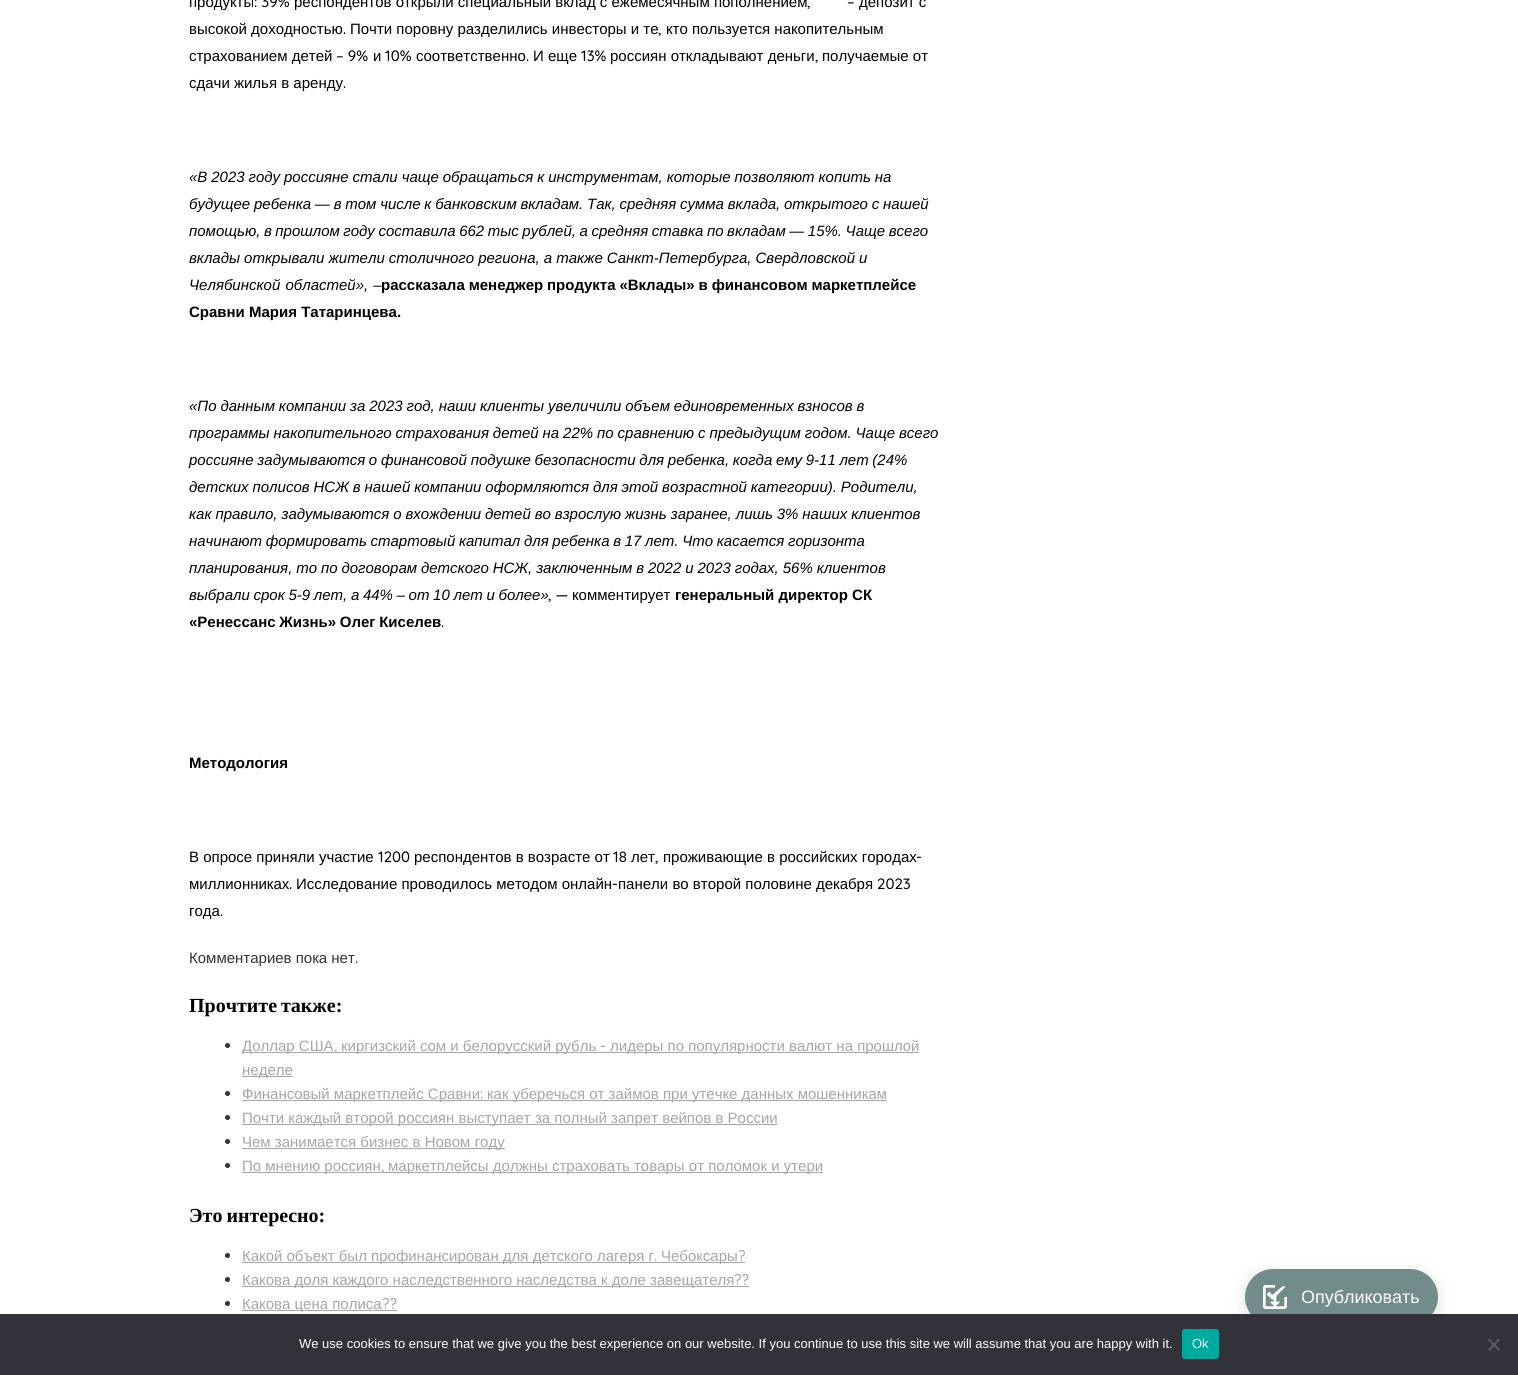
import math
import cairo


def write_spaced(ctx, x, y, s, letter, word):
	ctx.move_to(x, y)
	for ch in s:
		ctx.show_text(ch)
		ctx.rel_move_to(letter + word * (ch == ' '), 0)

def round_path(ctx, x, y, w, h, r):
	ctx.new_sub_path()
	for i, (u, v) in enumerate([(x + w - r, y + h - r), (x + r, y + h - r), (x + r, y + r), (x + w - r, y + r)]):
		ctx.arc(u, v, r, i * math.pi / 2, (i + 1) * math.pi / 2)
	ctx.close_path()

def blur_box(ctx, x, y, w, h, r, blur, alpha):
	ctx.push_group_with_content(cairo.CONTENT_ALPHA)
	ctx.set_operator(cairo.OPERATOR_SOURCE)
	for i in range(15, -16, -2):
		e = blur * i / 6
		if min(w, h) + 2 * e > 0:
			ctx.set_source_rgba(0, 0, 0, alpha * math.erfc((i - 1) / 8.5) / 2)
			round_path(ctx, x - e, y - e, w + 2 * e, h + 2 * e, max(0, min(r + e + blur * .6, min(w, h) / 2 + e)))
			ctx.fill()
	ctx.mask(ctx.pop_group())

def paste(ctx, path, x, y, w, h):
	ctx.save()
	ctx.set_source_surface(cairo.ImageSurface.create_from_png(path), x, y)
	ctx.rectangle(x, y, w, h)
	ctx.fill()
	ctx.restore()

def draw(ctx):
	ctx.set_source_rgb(1, 1, 1)
	ctx.paint()
	ctx.select_font_face('Liberation Sans')
	ctx.set_font_size(15)
	ctx.set_source_rgb(0, 0, 0)
	ctx.move_to(189, 7)
	ctx.show_text('продукты')
	ctx.select_font_face('Quicksand Medium')
	ctx.move_to(254, 7)
	ctx.show_text(': 39%')
	ctx.select_font_face('Liberation Sans')
	ctx.move_to(294, 7)
	ctx.show_text('респондентов открыли специальный вклад с ежемесячным пополнением')
	ctx.select_font_face('Quicksand Medium')
	ctx.move_to(847, 7)
	ctx.show_text('–')
	ctx.select_font_face('Liberation Sans')
	ctx.move_to(859, 7)
	ctx.show_text('депозит с')
	ctx.select_font_face('Quicksand Medium')
	ctx.move_to(807, 7)
	ctx.show_text(',')
	ctx.select_font_face('Liberation Sans')
	ctx.move_to(189, 34)
	ctx.show_text('высокой доходностью')
	ctx.select_font_face('Quicksand Medium')
	ctx.move_to(343, 34)
	ctx.show_text('.')
	ctx.select_font_face('Liberation Sans')
	ctx.move_to(350, 34)
	ctx.show_text('Почти поровну разделились инвесторы и те')
	ctx.select_font_face('Quicksand Medium')
	ctx.move_to(658, 34)
	ctx.show_text(',')
	ctx.select_font_face('Liberation Sans')
	ctx.move_to(666, 34)
	ctx.show_text('кто пользуется накопительным')
	ctx.move_to(189, 61)
	ctx.show_text('страхованием детей')
	ctx.select_font_face('Quicksand Medium')
	ctx.move_to(336, 61)
	ctx.show_text('– 9%')
	ctx.select_font_face('Liberation Sans')
	ctx.move_to(373, 61)
	ctx.show_text('и')
	ctx.select_font_face('Quicksand Medium')
	ctx.move_to(385, 61)
	ctx.show_text('10%')
	ctx.select_font_face('Liberation Sans')
	ctx.move_to(416, 61)
	ctx.show_text('соответственно')
	ctx.select_font_face('Quicksand Medium')
	ctx.move_to(526, 61)
	ctx.show_text('.')
	ctx.select_font_face('Liberation Sans')
	ctx.move_to(533, 61)
	ctx.show_text('И еще')
	ctx.select_font_face('Quicksand Medium')
	ctx.move_to(581, 61)
	ctx.show_text('13%')
	ctx.select_font_face('Liberation Sans')
	ctx.move_to(610, 61)
	ctx.show_text('россиян откладывают деньги')
	ctx.select_font_face('Quicksand Medium')
	ctx.move_to(815, 61)
	ctx.show_text(',')
	ctx.select_font_face('Liberation Sans')
	ctx.move_to(822, 61)
	ctx.show_text('получаемые от')
	ctx.move_to(189, 88)
	ctx.show_text('сдачи жилья в аренду')
	ctx.select_font_face('Quicksand Medium')
	ctx.move_to(343, 88)
	ctx.show_text('.')
	ctx.select_font_face('Liberation Sans', cairo.FONT_SLANT_ITALIC)
	write_spaced(ctx, 189, 182, '«В 2023 году россияне стали чаще обращаться к инструментам, которые позволяют копить на', 0, -0.25)
	write_spaced(ctx, 189, 209, 'будущее ребенка — в том числе к банковским вкладам. Так, средняя сумма вклада, открытого с нашей', 0, -0.4)
	write_spaced(ctx, 189, 236, 'помощью, в прошлом году составила 662 тыс рублей, а средняя ставка по вкладам — 15%. Чаще всего', 0, -0.6)
	write_spaced(ctx, 189, 263, 'вклады открывали жители столичного региона, а также Санкт-Петербурга, Свердловской и', 0, -0.1)
	write_spaced(ctx, 189, 290, 'Челябинской областей», –', 0, 1)
	ctx.select_font_face('Liberation Sans', cairo.FONT_SLANT_NORMAL, cairo.FONT_WEIGHT_BOLD)
	write_spaced(ctx, 381, 290, 'рассказала менеджер продукта «Вклады» в финансовом маркетплейсе', 0, -0.25)
	ctx.move_to(189, 317)
	ctx.show_text('Сравни Мария Татаринцева.')
	ctx.select_font_face('Liberation Sans', cairo.FONT_SLANT_ITALIC)
	write_spaced(ctx, 189, 411, '«По данным компании за 2023 год, наши клиенты увеличили объем единовременных взносов в', 0, -0.25)
	write_spaced(ctx, 189, 438, 'программы накопительного страхования детей на 22% по сравнению с предыдущим годом. Чаще всего', 0, -0.25)
	write_spaced(ctx, 189, 465, 'россияне задумываются о финансовой подушке безопасности для ребенка, когда ему 9-11 лет (24%', 0, -0.5)
	write_spaced(ctx, 189, 492, 'детских полисов НСЖ в нашей компании оформляются для этой возрастной категории). Родители,', 0, -0.25)
	write_spaced(ctx, 189, 519, 'как правило, задумываются о вхождении детей во взрослую жизнь заранее, лишь 3% наших клиентов', 0, -0.25)
	write_spaced(ctx, 189, 546, 'начинают формировать стартовый капитал для ребенка в 17 лет. Что касается горизонта', 0, -0.5)
	write_spaced(ctx, 189, 573, 'планирования, то по договорам детского НСЖ, заключенным в 2022 и 2023 годах, 56% клиентов', 0, -0.25)
	write_spaced(ctx, 189, 600, 'выбрали срок 5-9 лет, а 44% – от 10 лет и более»', 0, -0.5)
	ctx.select_font_face('Quicksand Medium')
	ctx.move_to(548, 600)
	ctx.show_text(', —')
	ctx.select_font_face('Liberation Sans')
	ctx.move_to(572, 600)
	ctx.show_text('комментирует')
	ctx.select_font_face('Liberation Sans', cairo.FONT_SLANT_NORMAL, cairo.FONT_WEIGHT_BOLD)
	ctx.move_to(675, 600)
	ctx.show_text('генеральный директор СК')
	write_spaced(ctx, 189, 627, '«Ренессанс Жизнь» Олег Киселев', 0, -0.5)
	ctx.select_font_face('Quicksand Medium')
	ctx.move_to(441, 627)
	ctx.show_text('.')
	ctx.select_font_face('Liberation Sans', cairo.FONT_SLANT_NORMAL, cairo.FONT_WEIGHT_BOLD)
	ctx.move_to(189, 768)
	ctx.show_text('Методология')
	ctx.select_font_face('Liberation Sans')
	ctx.move_to(189, 862)
	ctx.show_text('В опросе приняли участие')
	ctx.select_font_face('Quicksand Medium')
	ctx.move_to(378, 862)
	ctx.show_text('1200')
	ctx.select_font_face('Liberation Sans')
	ctx.move_to(414, 862)
	ctx.show_text('респондентов в возрасте от')
	ctx.select_font_face('Quicksand Medium')
	ctx.move_to(613, 862)
	ctx.show_text('18')
	ctx.select_font_face('Liberation Sans')
	ctx.move_to(631, 862)
	ctx.show_text('лет')
	ctx.move_to(663, 862)
	ctx.show_text('проживающие в российских городах')
	ctx.select_font_face('Quicksand Medium')
	ctx.move_to(916, 862)
	ctx.show_text('-')
	ctx.move_to(655, 862)
	ctx.show_text(',')
	ctx.select_font_face('Liberation Sans')
	ctx.move_to(189, 889)
	ctx.show_text('миллионниках')
	ctx.move_to(296, 889)
	ctx.show_text('Исследование проводилось методом онлайн')
	ctx.select_font_face('Quicksand Medium')
	ctx.move_to(612, 889)
	ctx.show_text('-')
	ctx.select_font_face('Liberation Sans')
	ctx.move_to(618, 889)
	ctx.show_text('панели во второй половине декабря')
	ctx.select_font_face('Quicksand Medium')
	ctx.move_to(877, 889)
	ctx.show_text('2023')
	ctx.move_to(289, 889)
	ctx.show_text('.')
	ctx.select_font_face('Liberation Sans')
	ctx.move_to(189, 916)
	ctx.show_text('года')
	ctx.select_font_face('Quicksand Medium')
	ctx.move_to(220, 916)
	ctx.show_text('.')
	ctx.select_font_face('Liberation Sans')
	ctx.set_source_rgb(0.2, 0.2, 0.2)
	ctx.move_to(189, 963)
	ctx.show_text('Комментариев пока нет')
	ctx.select_font_face('Quicksand Medium')
	ctx.move_to(355, 963)
	ctx.show_text('.')
	ctx.select_font_face('Liberation Serif', cairo.FONT_SLANT_NORMAL, cairo.FONT_WEIGHT_BOLD)
	ctx.set_font_size(20)
	ctx.set_source_rgb(0, 0, 0)
	write_spaced(ctx, 189, 1012, 'Прочтите также:', 0, -1)
	ctx.set_source_rgb(0.2, 0.2, 0.2)
	ctx.new_path()
	ctx.arc(227.5, 1045.5, 2.5, 0, 2 * math.pi)
	ctx.fill()
	ctx.set_source_rgb(0.651, 0.651, 0.651)
	ctx.rectangle(242, 1052, 677, 1)
	ctx.fill()
	ctx.select_font_face('Liberation Sans')
	ctx.set_font_size(15)
	ctx.move_to(242, 1051)
	ctx.show_text('Доллар США')
	ctx.move_to(341, 1051)
	ctx.show_text('киргизский сом и белорусский рубль')
	ctx.select_font_face('Quicksand Medium')
	ctx.move_to(600, 1051)
	ctx.show_text('-')
	ctx.select_font_face('Liberation Sans')
	ctx.move_to(610, 1051)
	ctx.show_text('лидеры по популярности валют на прошлой')
	ctx.select_font_face('Quicksand Medium')
	ctx.move_to(334, 1051)
	ctx.show_text(',')
	ctx.rectangle(242, 1076, 51, 1)
	ctx.fill()
	ctx.select_font_face('Liberation Sans')
	ctx.move_to(242, 1075)
	ctx.show_text('неделе')
	ctx.set_source_rgb(0.2, 0.2, 0.2)
	ctx.new_path()
	ctx.arc(227.5, 1093.5, 2.5, 0, 2 * math.pi)
	ctx.fill()
	ctx.set_source_rgb(0.651, 0.651, 0.651)
	ctx.rectangle(242, 1100, 645, 1)
	ctx.fill()
	ctx.move_to(242, 1099)
	ctx.show_text('Финансовый маркетплейс Сравни')
	ctx.select_font_face('Quicksand Medium')
	ctx.move_to(480, 1099)
	ctx.show_text(':')
	ctx.select_font_face('Liberation Sans')
	ctx.move_to(487, 1099)
	ctx.show_text('как уберечься от займов при утечке данных мошенникам')
	ctx.set_source_rgb(0.2, 0.2, 0.2)
	ctx.new_path()
	ctx.arc(227.5, 1117.5, 2.5, 0, 2 * math.pi)
	ctx.fill()
	ctx.set_source_rgb(0.651, 0.651, 0.651)
	ctx.rectangle(242, 1124, 535, 1)
	ctx.fill()
	ctx.move_to(242, 1123)
	ctx.show_text('Почти каждый второй россиян выступает за полный запрет вейпов в России')
	ctx.set_source_rgb(0.2, 0.2, 0.2)
	ctx.new_path()
	ctx.arc(227.5, 1141.5, 2.5, 0, 2 * math.pi)
	ctx.fill()
	ctx.set_source_rgb(0.651, 0.651, 0.651)
	ctx.rectangle(242, 1148, 263, 1)
	ctx.fill()
	ctx.move_to(242, 1147)
	ctx.show_text('Чем занимается бизнес в Новом году')
	ctx.set_source_rgb(0.2, 0.2, 0.2)
	ctx.new_path()
	ctx.arc(227.5, 1165.5, 2.5, 0, 2 * math.pi)
	ctx.fill()
	ctx.set_source_rgb(0.651, 0.651, 0.651)
	ctx.rectangle(242, 1172, 581, 1)
	ctx.fill()
	ctx.move_to(242, 1171)
	ctx.show_text('По мнению россиян')
	ctx.move_to(388, 1171)
	ctx.show_text('маркетплейсы должны страховать товары от поломок и утери')
	ctx.select_font_face('Quicksand Medium')
	ctx.move_to(381, 1171)
	ctx.show_text(',')
	ctx.select_font_face('Liberation Serif', cairo.FONT_SLANT_NORMAL, cairo.FONT_WEIGHT_BOLD)
	ctx.set_font_size(20)
	ctx.set_source_rgb(0, 0, 0)
	write_spaced(ctx, 189, 1222, 'Это интересно:', 0, -1)
	ctx.set_source_rgb(0.2, 0.2, 0.2)
	ctx.new_path()
	ctx.arc(227.5, 1255.5, 2.5, 0, 2 * math.pi)
	ctx.fill()
	ctx.set_source_rgb(0.651, 0.651, 0.651)
	ctx.rectangle(242, 1262, 503, 1)
	ctx.fill()
	ctx.select_font_face('Liberation Sans')
	ctx.set_font_size(15)
	ctx.move_to(242, 1261)
	ctx.show_text('Какой объект был профинансирован для детского лагеря г')
	ctx.move_to(661, 1261)
	ctx.show_text('Чебоксары')
	ctx.select_font_face('Quicksand Medium')
	ctx.move_to(738, 1261)
	ctx.show_text('?')
	ctx.move_to(654, 1261)
	ctx.show_text('.')
	ctx.set_source_rgb(0.2, 0.2, 0.2)
	ctx.new_path()
	ctx.arc(227.5, 1279.5, 2.5, 0, 2 * math.pi)
	ctx.fill()
	ctx.set_source_rgb(0.651, 0.651, 0.651)
	ctx.rectangle(242, 1286, 507, 1)
	ctx.fill()
	ctx.select_font_face('Liberation Sans')
	ctx.move_to(242, 1285)
	ctx.show_text('Какова доля каждого наследственного наследства к доле завещателя')
	ctx.select_font_face('Quicksand Medium')
	ctx.move_to(734, 1285)
	ctx.show_text('??')
	ctx.set_source_rgb(0.2, 0.2, 0.2)
	ctx.new_path()
	ctx.arc(227.5, 1303.5, 2.5, 0, 2 * math.pi)
	ctx.fill()
	ctx.set_source_rgb(0.651, 0.651, 0.651)
	ctx.rectangle(242, 1310, 155, 1)
	ctx.fill()
	ctx.select_font_face('Liberation Sans')
	ctx.move_to(242, 1309)
	ctx.show_text('Какова цена полиса')
	ctx.select_font_face('Quicksand Medium')
	ctx.move_to(382, 1309)
	ctx.show_text('??')
	ctx.set_source_rgb(0, 0, 0)
	blur_box(ctx, 1245, 1273, 193, 56, 28, 9, 0.12)
	ctx.set_source_rgb(0.447, 0.545, 0.545)
	round_path(ctx, 1245, 1269, 193, 56, 28)
	ctx.fill()
	paste(ctx, 'media/1.png', 1263, 1285, 24, 24)
	ctx.select_font_face('Liberation Sans')
	ctx.set_font_size(18)
	ctx.set_source_rgb(1, 1, 1)
	ctx.move_to(1301, 1303)
	ctx.show_text('Опубликовать')
	ctx.set_source_rgb(0.196, 0.196, 0.227)
	ctx.rectangle(0, 1314, 1518, 61)
	ctx.fill()
	ctx.set_font_size(13)
	ctx.set_source_rgb(1, 1, 1)
	ctx.move_to(299, 1348)
	ctx.show_text('We use cookies to ensure that we give you the best experience on our website. If you continue to use this site we will assume that you are happy with it.')
	ctx.set_source_rgb(0, 0.663, 0.616)
	round_path(ctx, 1182, 1329, 37, 30, 3)
	ctx.fill()
	ctx.set_source_rgb(1, 1, 1)
	ctx.move_to(1192, 1348)
	ctx.show_text('Ok')
	ctx.set_source_rgb(0.349, 0.349, 0.365)
	ctx.new_path()
	ctx.move_to(1498.5, 1338.5)
	ctx.line_to(1500, 1340)
	ctx.line_to(1489.5, 1351)
	ctx.line_to(1488, 1349.5)
	ctx.close_path()
	ctx.fill()
	ctx.new_path()
	ctx.move_to(1488, 1340)
	ctx.line_to(1489.5, 1338.5)
	ctx.line_to(1500, 1349.5)
	ctx.line_to(1498.5, 1351)
	ctx.close_path()
	ctx.fill()


surface = cairo.ImageSurface(cairo.FORMAT_RGB24, 1518, 1375)
ctx = cairo.Context(surface)
options = cairo.FontOptions()
options.set_hint_metrics(cairo.HINT_METRICS_OFF)
options.set_hint_style(cairo.HINT_STYLE_NONE)
ctx.set_font_options(options)
ctx.set_miter_limit(4)
draw(ctx)
surface.write_to_png('image.png')
